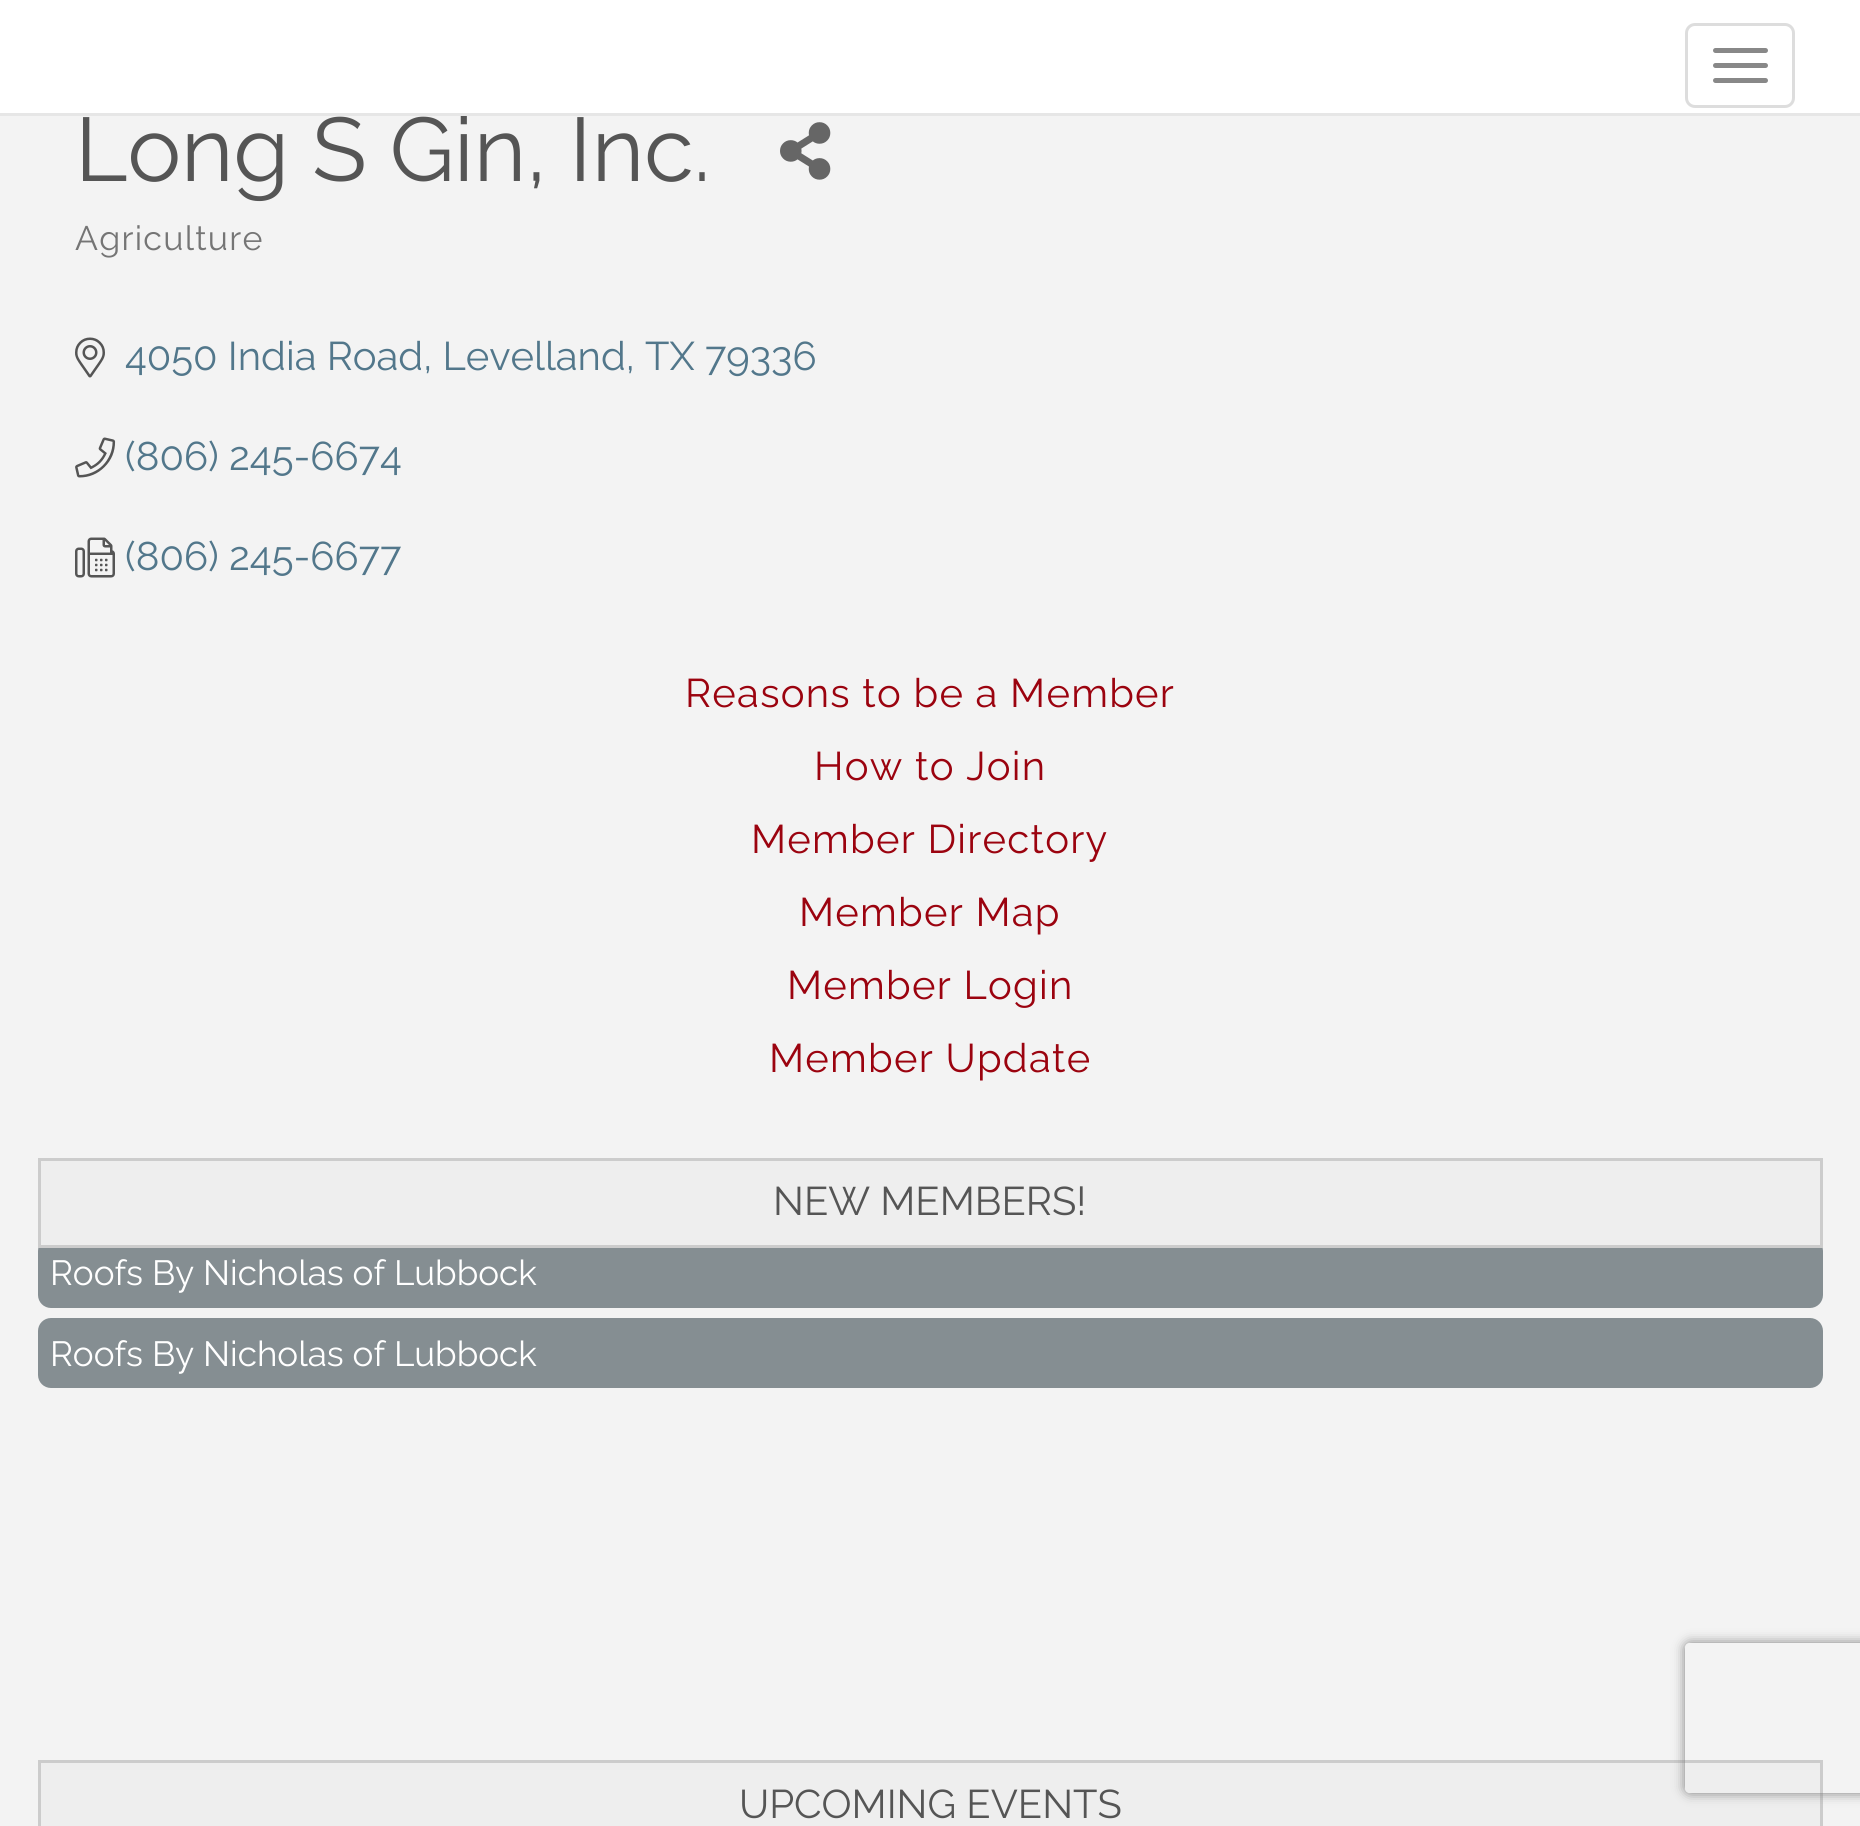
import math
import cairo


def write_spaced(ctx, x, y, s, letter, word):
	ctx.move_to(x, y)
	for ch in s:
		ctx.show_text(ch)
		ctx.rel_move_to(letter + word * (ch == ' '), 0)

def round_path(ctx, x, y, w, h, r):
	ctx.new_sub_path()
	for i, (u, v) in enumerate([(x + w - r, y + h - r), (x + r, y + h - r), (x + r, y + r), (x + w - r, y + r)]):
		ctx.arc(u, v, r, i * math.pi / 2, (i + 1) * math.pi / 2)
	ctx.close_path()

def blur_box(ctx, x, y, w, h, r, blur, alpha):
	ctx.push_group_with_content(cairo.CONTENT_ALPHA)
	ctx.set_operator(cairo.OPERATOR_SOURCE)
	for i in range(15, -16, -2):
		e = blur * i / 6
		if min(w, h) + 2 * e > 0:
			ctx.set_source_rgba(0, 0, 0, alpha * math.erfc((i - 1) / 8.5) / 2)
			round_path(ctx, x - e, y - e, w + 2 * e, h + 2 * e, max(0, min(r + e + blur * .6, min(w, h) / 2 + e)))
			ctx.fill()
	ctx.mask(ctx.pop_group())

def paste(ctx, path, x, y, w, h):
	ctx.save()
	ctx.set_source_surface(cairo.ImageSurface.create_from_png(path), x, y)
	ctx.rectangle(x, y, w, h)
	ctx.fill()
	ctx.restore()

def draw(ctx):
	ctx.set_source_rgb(0.953, 0.953, 0.953)
	ctx.paint()
	ctx.set_source_rgb(1, 1, 1)
	ctx.rectangle(0, 0, 1860, 113)
	ctx.fill()
	ctx.select_font_face('Raleway')
	ctx.set_font_size(90)
	ctx.set_source_rgb(0.333, 0.333, 0.333)
	ctx.move_to(75, 181)
	ctx.show_text('Long S Gin, Inc.')
	ctx.set_source_rgb(0.902, 0.902, 0.902)
	ctx.rectangle(0, 113, 1860, 3)
	ctx.fill()
	round_path(ctx, 1686.5, 24.5, 107, 82, 8.5)
	ctx.set_source_rgb(0.867, 0.867, 0.867)
	ctx.set_line_width(3)
	ctx.stroke()
	ctx.set_source_rgb(0.533, 0.533, 0.533)
	round_path(ctx, 1713, 48, 55, 5, 2.5)
	ctx.fill()
	round_path(ctx, 1713, 63, 55, 5, 2.5)
	ctx.fill()
	round_path(ctx, 1713, 78, 55, 5, 2.5)
	ctx.fill()
	paste(ctx, 'media/1.png', 780, 122, 51, 58)
	ctx.set_font_size(34)
	ctx.set_source_rgb(0.459, 0.459, 0.459)
	write_spaced(ctx, 75, 250, 'Agriculture', 1.25, 0)
	paste(ctx, 'media/2.png', 75, 337, 30, 41)
	ctx.set_font_size(40)
	ctx.set_source_rgb(0.322, 0.467, 0.545)
	ctx.move_to(125, 370)
	ctx.show_text('4050 India Road, Levelland, TX 79336')
	paste(ctx, 'media/3.png', 75, 437, 41, 41)
	ctx.move_to(125, 470)
	ctx.show_text('(806) 245-6674')
	paste(ctx, 'media/4.png', 75, 537, 40, 41)
	ctx.move_to(125, 570)
	ctx.show_text('(806) 245-6677')
	ctx.set_source_rgb(0.608, 0.012, 0.059)
	for x, y, s in [
		(685, 707, 'Reasons to be a Member'),
		(814, 780, 'How to Join'),
		(751, 853, 'Member Directory'),
		(799, 926, 'Member Map'),
		(787, 999, 'Member Login'),
		(769, 1072, 'Member Update'),
	]:
		write_spaced(ctx, x, y, s, 1.25, 0)
	ctx.set_source_rgb(0.933, 0.933, 0.933)
	ctx.rectangle(39.5, 1159.5, 1782, 87)
	ctx.fill_preserve()
	ctx.set_source_rgb(0.8, 0.8, 0.8)
	ctx.stroke()
	ctx.set_source_rgb(0.333, 0.333, 0.333)
	ctx.move_to(773, 1215)
	ctx.show_text('NEW MEMBERS!')
	ctx.save()
	ctx.rectangle(38, 1248, 1785, 512)
	ctx.clip()
	ctx.set_source_rgb(0.522, 0.557, 0.573)
	round_path(ctx, 38, 1238, 1785, 70, 13)
	ctx.fill()
	ctx.restore()
	ctx.set_font_size(35)
	ctx.set_source_rgb(1, 1, 1)
	ctx.move_to(50, 1285)
	ctx.show_text('Roofs By Nicholas of Lubbock')
	ctx.set_source_rgb(0.522, 0.557, 0.573)
	round_path(ctx, 38, 1318, 1785, 70, 13)
	ctx.fill()
	ctx.set_source_rgb(1, 1, 1)
	ctx.move_to(50, 1366)
	ctx.show_text('Roofs By Nicholas of Lubbock')
	ctx.set_source_rgb(0.933, 0.933, 0.933)
	ctx.rectangle(39.5, 1761.5, 1782, 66)
	ctx.fill_preserve()
	ctx.set_source_rgb(0.8, 0.8, 0.8)
	ctx.stroke()
	ctx.set_font_size(40)
	ctx.set_source_rgb(0.333, 0.333, 0.333)
	ctx.move_to(739, 1818)
	ctx.show_text('UPCOMING EVENTS')
	ctx.save()
	ctx.set_fill_rule(cairo.FILL_RULE_EVEN_ODD)
	ctx.new_path()
	ctx.move_to(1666, 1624)
	ctx.line_to(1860, 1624)
	ctx.line_to(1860, 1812)
	ctx.line_to(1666, 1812)
	ctx.close_path()
	ctx.move_to(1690, 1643)
	ctx.line_to(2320, 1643)
	ctx.curve_to(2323, 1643, 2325, 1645, 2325, 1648)
	ctx.line_to(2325, 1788)
	ctx.curve_to(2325, 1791, 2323, 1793, 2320, 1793)
	ctx.line_to(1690, 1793)
	ctx.curve_to(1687, 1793, 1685, 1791, 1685, 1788)
	ctx.line_to(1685, 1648)
	ctx.curve_to(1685, 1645, 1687, 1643, 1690, 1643)
	ctx.close_path()
	ctx.clip()
	ctx.set_source_rgb(0.502, 0.502, 0.502)
	blur_box(ctx, 1685, 1643, 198, 150, 5, 6, 1)
	ctx.restore()


surface = cairo.ImageSurface(cairo.FORMAT_RGB24, 1860, 1826)
ctx = cairo.Context(surface)
options = cairo.FontOptions()
options.set_hint_metrics(cairo.HINT_METRICS_OFF)
options.set_hint_style(cairo.HINT_STYLE_NONE)
ctx.set_font_options(options)
ctx.set_miter_limit(4)
draw(ctx)
surface.write_to_png('image.png')
